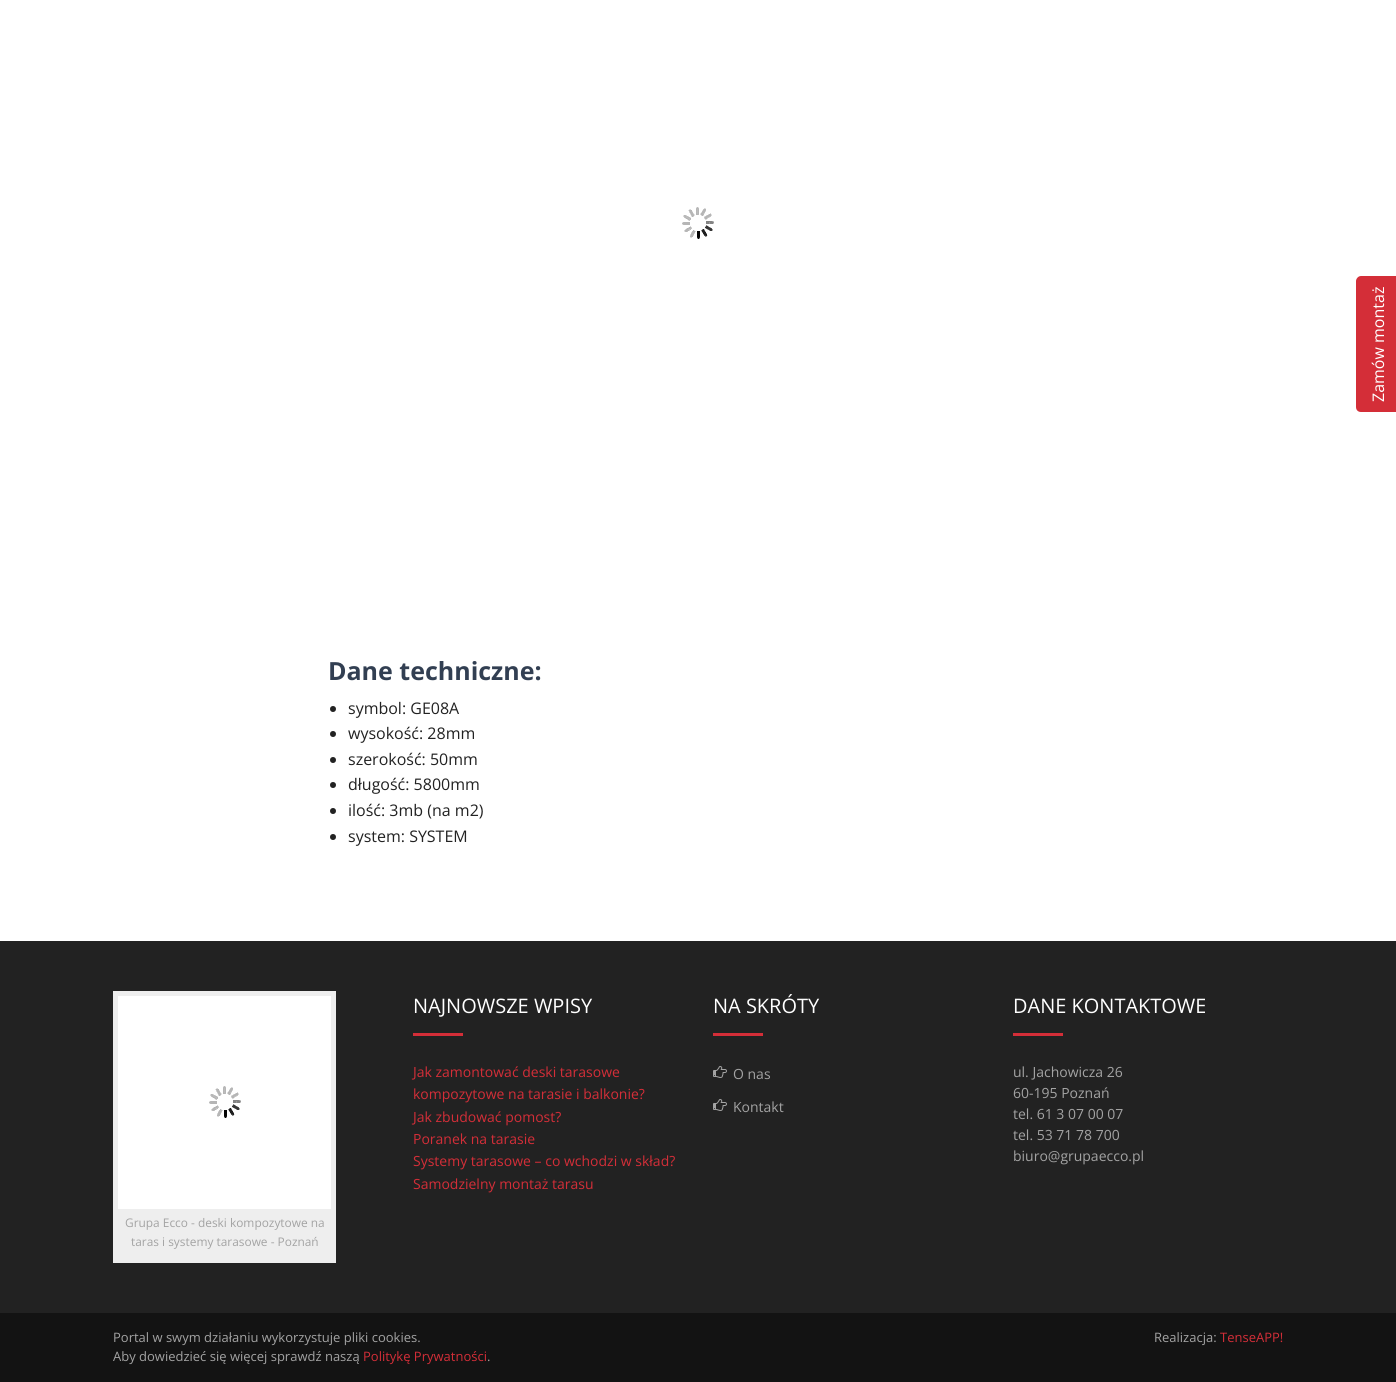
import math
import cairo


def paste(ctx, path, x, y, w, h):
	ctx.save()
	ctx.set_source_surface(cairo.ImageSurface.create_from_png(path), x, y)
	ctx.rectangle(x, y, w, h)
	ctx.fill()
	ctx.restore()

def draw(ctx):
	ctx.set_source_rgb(1, 1, 1)
	ctx.paint()
	ctx.set_source_rgb(0.831, 0.18, 0.22)
	ctx.new_path()
	ctx.move_to(1356, 407)
	ctx.line_to(1356, 281)
	ctx.curve_to(1356, 279, 1358, 276, 1361, 276)
	ctx.line_to(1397, 276)
	ctx.curve_to(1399, 276, 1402, 279, 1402, 281)
	ctx.line_to(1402, 407)
	ctx.curve_to(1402, 410, 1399, 412, 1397, 412)
	ctx.line_to(1361, 412)
	ctx.curve_to(1358, 412, 1356, 410, 1356, 407)
	ctx.close_path()
	ctx.fill()
	ctx.select_font_face('Open Sans')
	ctx.set_font_size(16)
	ctx.set_source_rgb(1, 1, 1)
	ctx.save()
	ctx.translate(1384, 402)
	ctx.rotate(-90 * math.pi / 180)
	ctx.move_to(0, 0)
	ctx.show_text('Zamów montaż')
	ctx.restore()
	paste(ctx, 'media/1.png', 682, 207, 32, 32)
	ctx.select_font_face('Open Sans', cairo.FONT_SLANT_NORMAL, cairo.FONT_WEIGHT_BOLD)
	ctx.set_font_size(25)
	ctx.set_source_rgb(0.196, 0.247, 0.322)
	ctx.move_to(328, 680)
	ctx.show_text('Dane techniczne:')
	ctx.set_source_rgb(0.133, 0.133, 0.133)
	ctx.new_path()
	ctx.arc(333, 709, 3, 0, 2 * math.pi)
	ctx.fill()
	ctx.select_font_face('Open Sans')
	ctx.set_font_size(16)
	ctx.move_to(348, 714)
	ctx.show_text('symbol: GE08A')
	ctx.new_path()
	ctx.arc(333, 734, 3, 0, 2 * math.pi)
	ctx.fill()
	ctx.move_to(348, 739)
	ctx.show_text('wysokość: 28mm')
	ctx.new_path()
	ctx.arc(333, 760, 3, 0, 2 * math.pi)
	ctx.fill()
	ctx.move_to(348, 765)
	ctx.show_text('szerokość: 50mm')
	ctx.new_path()
	ctx.arc(333, 785, 3, 0, 2 * math.pi)
	ctx.fill()
	ctx.move_to(348, 790)
	ctx.show_text('długość: 5800mm')
	ctx.new_path()
	ctx.arc(333, 811, 3, 0, 2 * math.pi)
	ctx.fill()
	ctx.move_to(348, 816)
	ctx.show_text('ilość: 3mb (na m2)')
	ctx.new_path()
	ctx.arc(333, 837, 3, 0, 2 * math.pi)
	ctx.fill()
	ctx.move_to(348, 842)
	ctx.show_text('system: SYSTEM')
	ctx.rectangle(0, 941, 1396, 372)
	ctx.fill()
	ctx.set_font_size(20)
	ctx.set_source_rgb(1, 1, 1)
	ctx.move_to(413, 1013)
	ctx.show_text('NAJNOWSZE WPISY')
	ctx.set_source_rgb(0.831, 0.18, 0.22)
	ctx.rectangle(413, 1033, 50, 3)
	ctx.fill()
	ctx.set_font_size(14)
	for x, y, s in [
		(413, 1077, 'Jak zamontować deski tarasowe'),
		(413, 1099, 'kompozytowe na tarasie i balkonie?'),
		(413, 1122, 'Jak zbudować pomost?'),
		(413, 1144, 'Poranek na tarasie'),
		(413, 1166, 'Systemy tarasowe – co wchodzi w skład?'),
		(413, 1189, 'Samodzielny montaż tarasu'),
	]:
		ctx.move_to(x, y)
		ctx.show_text(s)
	ctx.set_font_size(20)
	ctx.set_source_rgb(1, 1, 1)
	ctx.move_to(713, 1013)
	ctx.show_text('NA SKRÓTY')
	ctx.set_source_rgb(0.831, 0.18, 0.22)
	ctx.rectangle(713, 1033, 50, 3)
	ctx.fill()
	paste(ctx, 'media/2.png', 713, 1066, 14, 12)
	ctx.set_font_size(14)
	ctx.set_source_rgb(0.639, 0.639, 0.639)
	ctx.move_to(733, 1079)
	ctx.show_text('O nas')
	paste(ctx, 'media/2.png', 713, 1099, 14, 12)
	ctx.move_to(733, 1112)
	ctx.show_text('Kontakt')
	ctx.set_font_size(20)
	ctx.set_source_rgb(1, 1, 1)
	ctx.move_to(1013, 1013)
	ctx.show_text('DANE KONTAKTOWE')
	ctx.set_source_rgb(0.831, 0.18, 0.22)
	ctx.rectangle(1013, 1033, 50, 3)
	ctx.fill()
	ctx.set_font_size(14)
	ctx.set_source_rgb(0.639, 0.639, 0.639)
	for x, y, s in [
		(1013, 1077, 'ul. Jachowicza 26'),
		(1013, 1098, '60-195 Poznań'),
		(1013, 1119, 'tel. 61 3 07 00 07'),
		(1013, 1140, 'tel. 53 71 78 700'),
		(1013, 1161, 'biuro@grupaecco.pl'),
	]:
		ctx.move_to(x, y)
		ctx.show_text(s)
	ctx.set_source_rgb(0.933, 0.933, 0.933)
	ctx.rectangle(113, 991, 223, 272)
	ctx.fill()
	ctx.set_source_rgb(1, 1, 1)
	ctx.rectangle(118, 996, 213, 213)
	ctx.fill()
	paste(ctx, 'media/1.png', 209, 1086, 32, 32)
	ctx.set_font_size(11.9)
	ctx.set_source_rgb(0.639, 0.639, 0.639)
	ctx.move_to(125, 1227)
	ctx.show_text('Grupa Ecco - deski kompozytowe na')
	ctx.move_to(131, 1246)
	ctx.show_text('taras i systemy tarasowe - Poznań')
	ctx.set_source_rgb(0.078, 0.075, 0.078)
	ctx.rectangle(0, 1313, 1396, 69)
	ctx.fill()
	ctx.set_font_size(13)
	ctx.set_source_rgb(0.639, 0.639, 0.639)
	ctx.move_to(113, 1342)
	ctx.show_text('Portal w swym działaniu wykorzystuje pliki cookies.')
	ctx.move_to(113, 1361)
	ctx.show_text('Aby dowiedzieć się więcej sprawdź naszą')
	ctx.set_source_rgb(0.831, 0.18, 0.22)
	ctx.move_to(363, 1361)
	ctx.show_text('Politykę Prywatności')
	ctx.set_source_rgb(0.639, 0.639, 0.639)
	ctx.move_to(487, 1361)
	ctx.show_text('.')
	ctx.move_to(1154, 1342)
	ctx.show_text('Realizacja:')
	ctx.set_source_rgb(0.831, 0.18, 0.22)
	ctx.move_to(1220, 1342)
	ctx.show_text('TenseAPP!')


surface = cairo.ImageSurface(cairo.FORMAT_RGB24, 1396, 1382)
ctx = cairo.Context(surface)
options = cairo.FontOptions()
options.set_hint_metrics(cairo.HINT_METRICS_OFF)
options.set_hint_style(cairo.HINT_STYLE_NONE)
ctx.set_font_options(options)
ctx.set_miter_limit(4)
draw(ctx)
surface.write_to_png('image.png')
